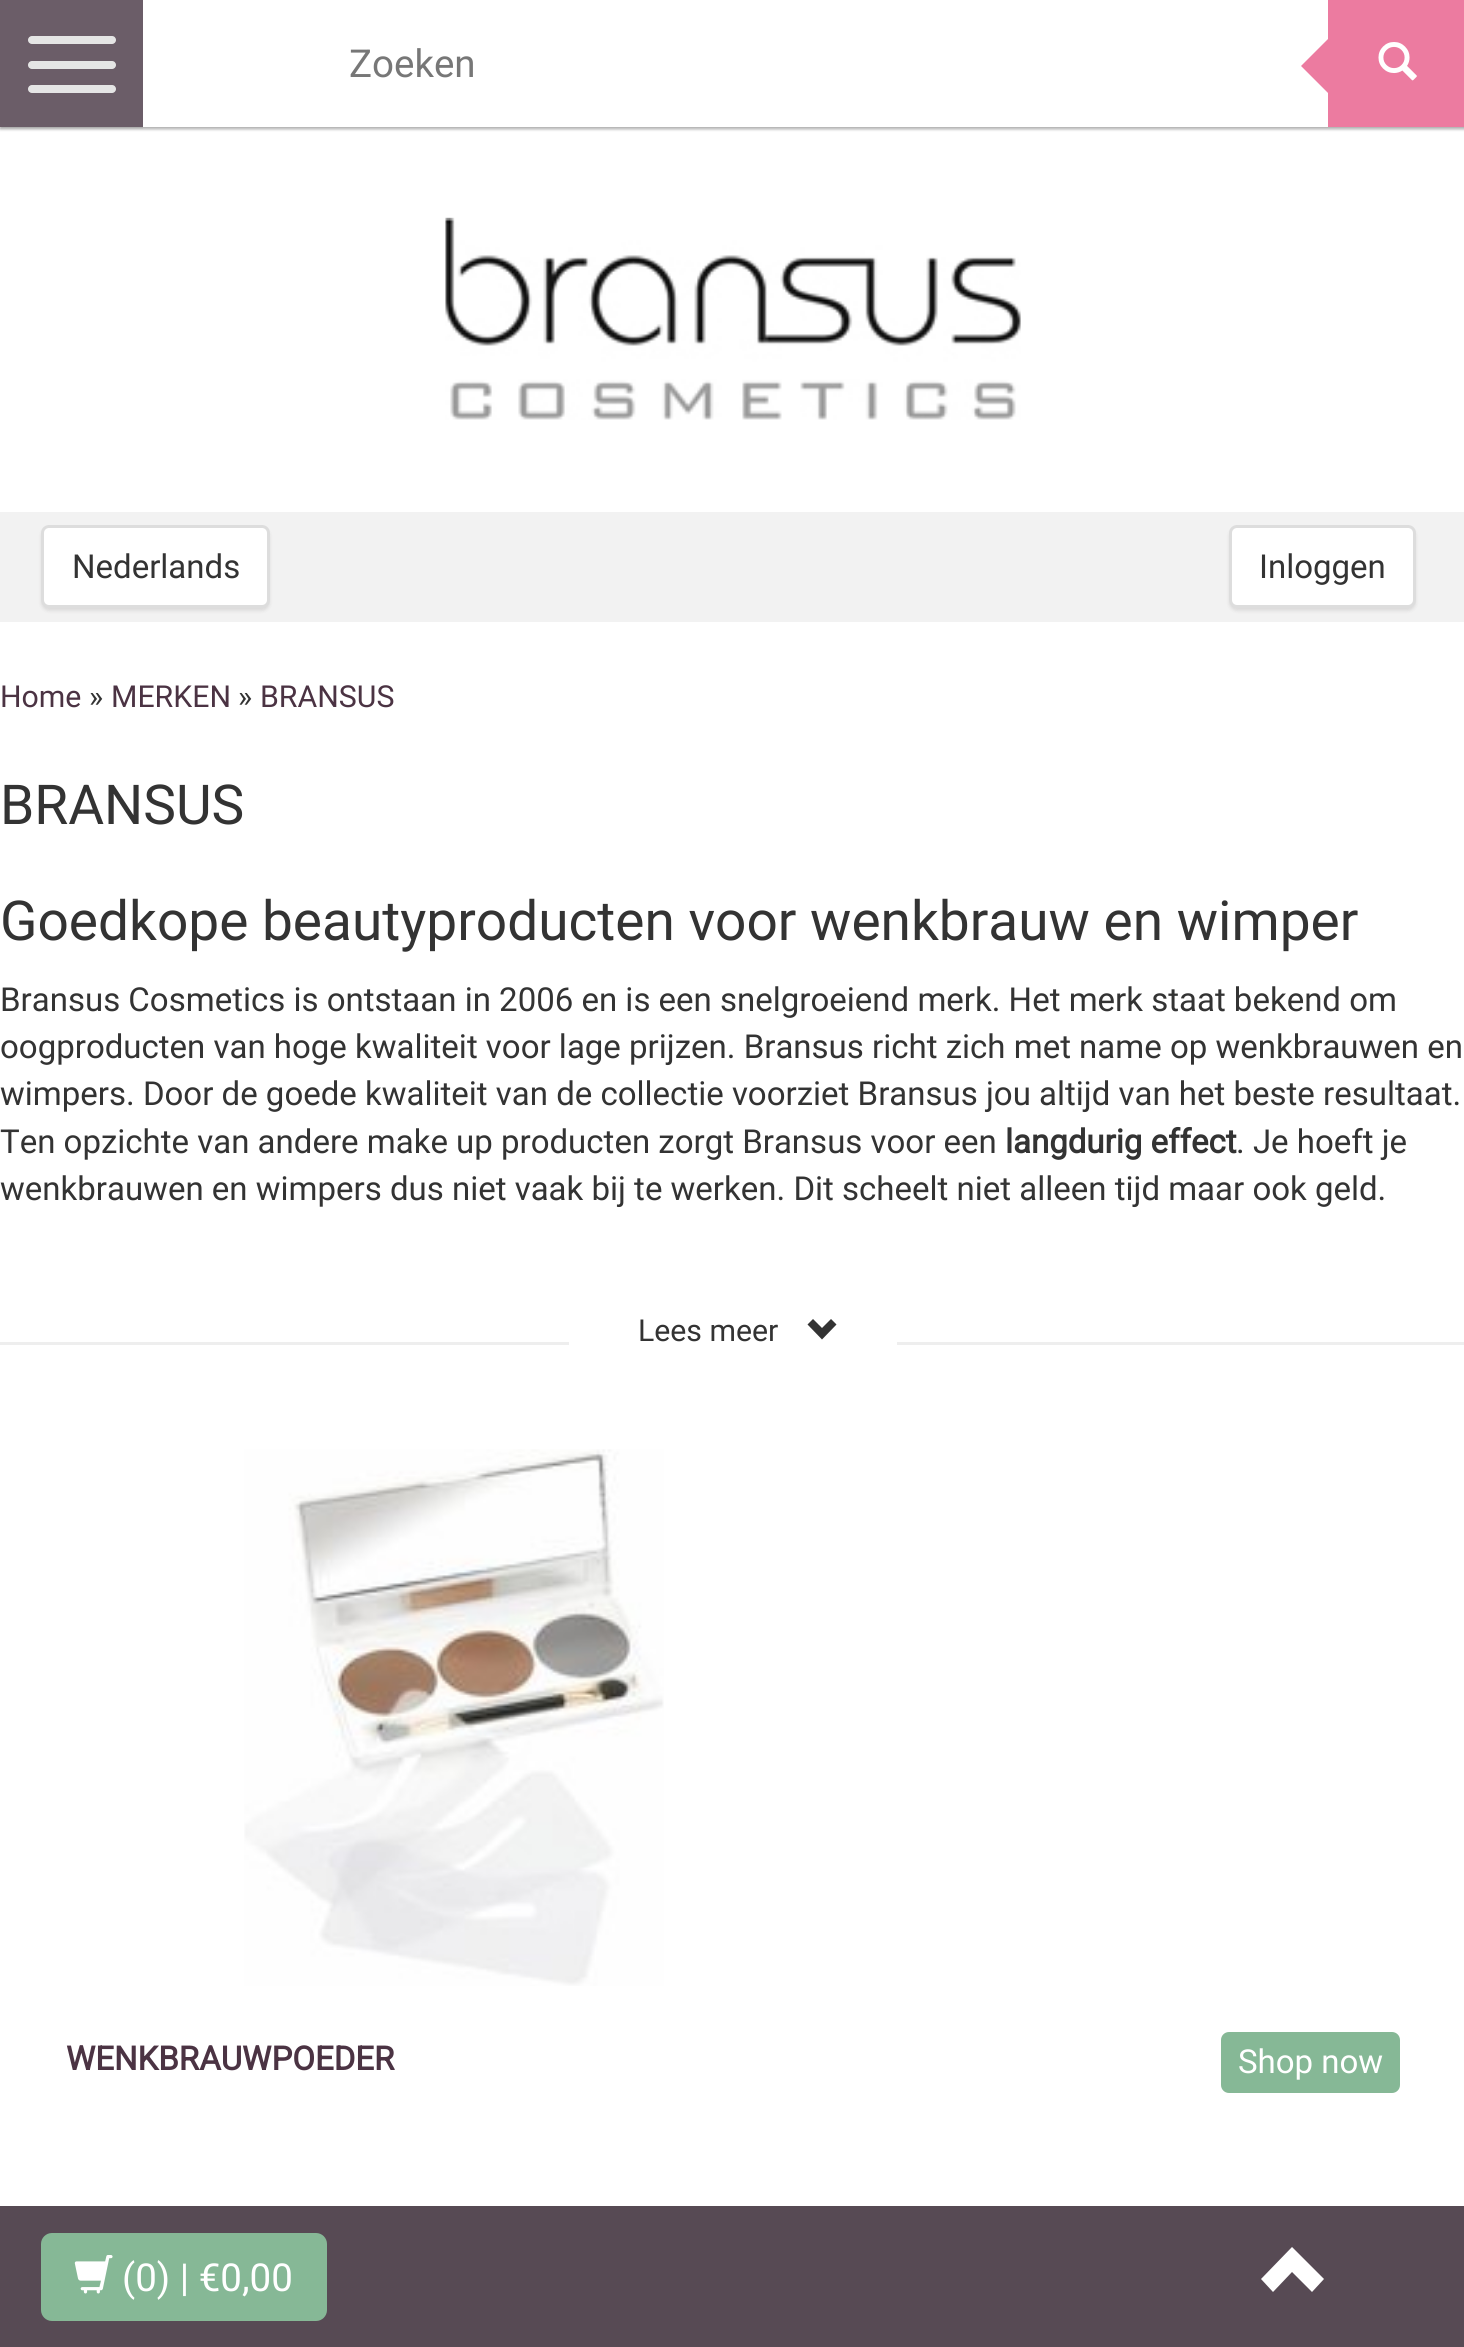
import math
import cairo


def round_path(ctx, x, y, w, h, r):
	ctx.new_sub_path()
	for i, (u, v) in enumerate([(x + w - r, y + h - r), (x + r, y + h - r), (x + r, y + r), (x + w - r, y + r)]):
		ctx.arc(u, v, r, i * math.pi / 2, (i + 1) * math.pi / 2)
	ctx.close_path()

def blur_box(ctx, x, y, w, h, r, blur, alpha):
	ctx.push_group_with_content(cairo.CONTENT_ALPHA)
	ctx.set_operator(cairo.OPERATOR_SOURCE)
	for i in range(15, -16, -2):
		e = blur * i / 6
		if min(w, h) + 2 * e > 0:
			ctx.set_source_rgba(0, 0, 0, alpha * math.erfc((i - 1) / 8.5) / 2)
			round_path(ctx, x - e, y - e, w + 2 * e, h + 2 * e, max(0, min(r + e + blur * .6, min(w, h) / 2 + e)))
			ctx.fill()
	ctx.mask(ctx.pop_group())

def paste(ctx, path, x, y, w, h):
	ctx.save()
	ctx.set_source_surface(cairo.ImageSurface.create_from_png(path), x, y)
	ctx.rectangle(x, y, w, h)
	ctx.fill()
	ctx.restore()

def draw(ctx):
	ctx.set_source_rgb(1, 1, 1)
	ctx.paint()
	ctx.set_source_rgb(0, 0, 0)
	blur_box(ctx, 0, 3, 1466, 126, 0, 1.5, 0.2)
	blur_box(ctx, 0, 3, 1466, 126, 0, 1.5, 0.2)
	ctx.set_source_rgb(0.42, 0.365, 0.408)
	ctx.rectangle(0, 0, 143, 127)
	ctx.fill()
	ctx.set_source_rgb(0.898, 0.898, 0.898)
	round_path(ctx, 28, 36, 88, 8, 4)
	ctx.fill()
	round_path(ctx, 28, 61, 88, 8, 4)
	ctx.fill()
	round_path(ctx, 28, 85, 88, 8, 4)
	ctx.fill()
	ctx.set_source_rgba(1, 1, 1, 0.1)
	ctx.new_path()
	ctx.move_to(143, 126)
	ctx.line_to(143, 129)
	ctx.line_to(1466, 129)
	ctx.line_to(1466, 3)
	ctx.line_to(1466, 126)
	ctx.close_path()
	ctx.fill()
	ctx.set_source_rgb(1, 1, 1)
	ctx.rectangle(143, 0, 1185, 127)
	ctx.fill()
	ctx.select_font_face('Roboto')
	ctx.set_font_size(38.5)
	ctx.set_source_rgb(0.467, 0.467, 0.467)
	ctx.move_to(349, 77)
	ctx.show_text('Zoeken')
	ctx.set_source_rgb(0.922, 0.482, 0.627)
	ctx.rectangle(1328, 0, 136, 127)
	ctx.fill()
	ctx.new_path()
	ctx.move_to(1331, 36)
	ctx.line_to(1331, 96)
	ctx.line_to(1301, 66)
	ctx.close_path()
	ctx.fill()
	paste(ctx, 'media/1.png', 1378, 42, 39, 39)
	paste(ctx, 'media/2.png', 445, 217, 576, 203)
	ctx.set_source_rgb(0.949, 0.949, 0.949)
	ctx.rectangle(0, 512, 1464, 110)
	ctx.fill()
	ctx.set_source_rgb(0.133, 0.098, 0.098)
	blur_box(ctx, 41, 528, 229, 83, 8, 1.5, 0.1)
	ctx.set_source_rgb(1, 1, 1)
	round_path(ctx, 42.5, 526.5, 226, 80, 6.5)
	ctx.fill_preserve()
	ctx.set_source_rgb(0.867, 0.867, 0.867)
	ctx.set_line_width(3)
	ctx.stroke()
	ctx.set_font_size(33)
	ctx.set_source_rgb(0.2, 0.2, 0.2)
	ctx.move_to(72, 578)
	ctx.show_text('Nederlands')
	ctx.set_source_rgb(0.133, 0.098, 0.098)
	blur_box(ctx, 1229, 528, 187, 83, 8, 1.5, 0.1)
	ctx.set_source_rgb(1, 1, 1)
	round_path(ctx, 1230.5, 526.5, 184, 80, 6.5)
	ctx.fill_preserve()
	ctx.set_source_rgb(0.867, 0.867, 0.867)
	ctx.stroke()
	ctx.set_source_rgb(0.2, 0.2, 0.2)
	ctx.move_to(1259, 578)
	ctx.show_text('Inloggen')
	ctx.set_font_size(30.25)
	ctx.set_source_rgb(0.294, 0.2, 0.263)
	ctx.move_to(0, 707)
	ctx.show_text('Home')
	ctx.set_source_rgb(0.2, 0.2, 0.2)
	ctx.move_to(89, 707)
	ctx.show_text('»')
	ctx.set_source_rgb(0.294, 0.2, 0.263)
	ctx.move_to(111, 707)
	ctx.show_text('MERKEN')
	ctx.set_source_rgb(0.2, 0.2, 0.2)
	ctx.move_to(238, 707)
	ctx.show_text('»')
	ctx.set_source_rgb(0.294, 0.2, 0.263)
	ctx.move_to(260, 707)
	ctx.show_text('BRANSUS')
	ctx.set_font_size(55)
	ctx.set_source_rgb(0.2, 0.2, 0.2)
	ctx.move_to(0, 824)
	ctx.show_text('BRANSUS')
	ctx.move_to(0, 940)
	ctx.show_text('Goedkope beautyproducten voor wenkbrauw en wimper')
	ctx.set_font_size(33)
	for x, y, s in [
		(0, 1011, 'Bransus Cosmetics is ontstaan in 2006 en is een snelgroeiend merk. Het merk staat bekend om'),
		(0, 1058, 'oogproducten van hoge kwaliteit voor lage prijzen. Bransus richt zich met name op wenkbrauwen en'),
		(0, 1105, 'wimpers. Door de goede kwaliteit van de collectie voorziet Bransus jou altijd van het beste resultaat.'),
		(0, 1153, 'Ten opzichte van andere make up producten zorgt Bransus voor een'),
	]:
		ctx.move_to(x, y)
		ctx.show_text(s)
	ctx.select_font_face('Roboto', cairo.FONT_SLANT_NORMAL, cairo.FONT_WEIGHT_BOLD)
	ctx.move_to(1005, 1153)
	ctx.show_text('langdurig effect')
	ctx.select_font_face('Roboto')
	ctx.move_to(1236, 1153)
	ctx.show_text('. Je hoeft je')
	ctx.move_to(0, 1200)
	ctx.show_text('wenkbrauwen en wimpers dus niet vaak bij te werken. Dit scheelt niet alleen tijd maar ook geld.')
	ctx.set_source_rgb(0.933, 0.933, 0.933)
	ctx.rectangle(0, 1342, 1464, 3)
	ctx.fill()
	ctx.set_source_rgb(1, 1, 1)
	ctx.rectangle(569, 1342, 328, 3)
	ctx.fill()
	ctx.set_font_size(30.25)
	ctx.set_source_rgb(0.2, 0.2, 0.2)
	ctx.move_to(638, 1341)
	ctx.show_text('Lees meer')
	ctx.new_path()
	ctx.move_to(807.5, 1324.5)
	ctx.line_to(822, 1339.5)
	ctx.line_to(836.5, 1324.5)
	ctx.line_to(831, 1319)
	ctx.line_to(822, 1328)
	ctx.line_to(813, 1319)
	ctx.close_path()
	ctx.fill()
	paste(ctx, 'media/3.png', 244, 1449, 420, 537)
	ctx.select_font_face('Roboto', cairo.FONT_SLANT_NORMAL, cairo.FONT_WEIGHT_BOLD)
	ctx.set_font_size(33)
	ctx.set_source_rgb(0.294, 0.2, 0.263)
	ctx.move_to(66, 2070)
	ctx.show_text('WENKBRAUWPOEDER')
	ctx.set_source_rgb(0.525, 0.722, 0.588)
	round_path(ctx, 1221, 2032, 179, 61, 8)
	ctx.fill()
	ctx.select_font_face('Roboto')
	ctx.set_source_rgb(1, 1, 1)
	ctx.move_to(1238, 2073)
	ctx.show_text('Shop now')
	ctx.set_source_rgb(0.341, 0.29, 0.329)
	ctx.rectangle(0, 2206, 1464, 141)
	ctx.fill()
	ctx.set_source_rgb(0.525, 0.722, 0.588)
	round_path(ctx, 41, 2233, 286, 88, 11)
	ctx.fill()
	paste(ctx, 'media/4.png', 74, 2255, 39, 39)
	ctx.set_font_size(38.5)
	ctx.set_source_rgb(1, 1, 1)
	ctx.move_to(122, 2291)
	ctx.show_text('(0) | €0,00')
	ctx.new_path()
	ctx.move_to(1261, 2279)
	ctx.line_to(1273, 2292)
	ctx.line_to(1292, 2272)
	ctx.line_to(1312, 2292)
	ctx.line_to(1324, 2279)
	ctx.line_to(1292, 2247)
	ctx.close_path()
	ctx.fill()


surface = cairo.ImageSurface(cairo.FORMAT_RGB24, 1464, 2347)
ctx = cairo.Context(surface)
options = cairo.FontOptions()
options.set_hint_metrics(cairo.HINT_METRICS_OFF)
options.set_hint_style(cairo.HINT_STYLE_NONE)
ctx.set_font_options(options)
ctx.set_miter_limit(4)
draw(ctx)
surface.write_to_png('image.png')
